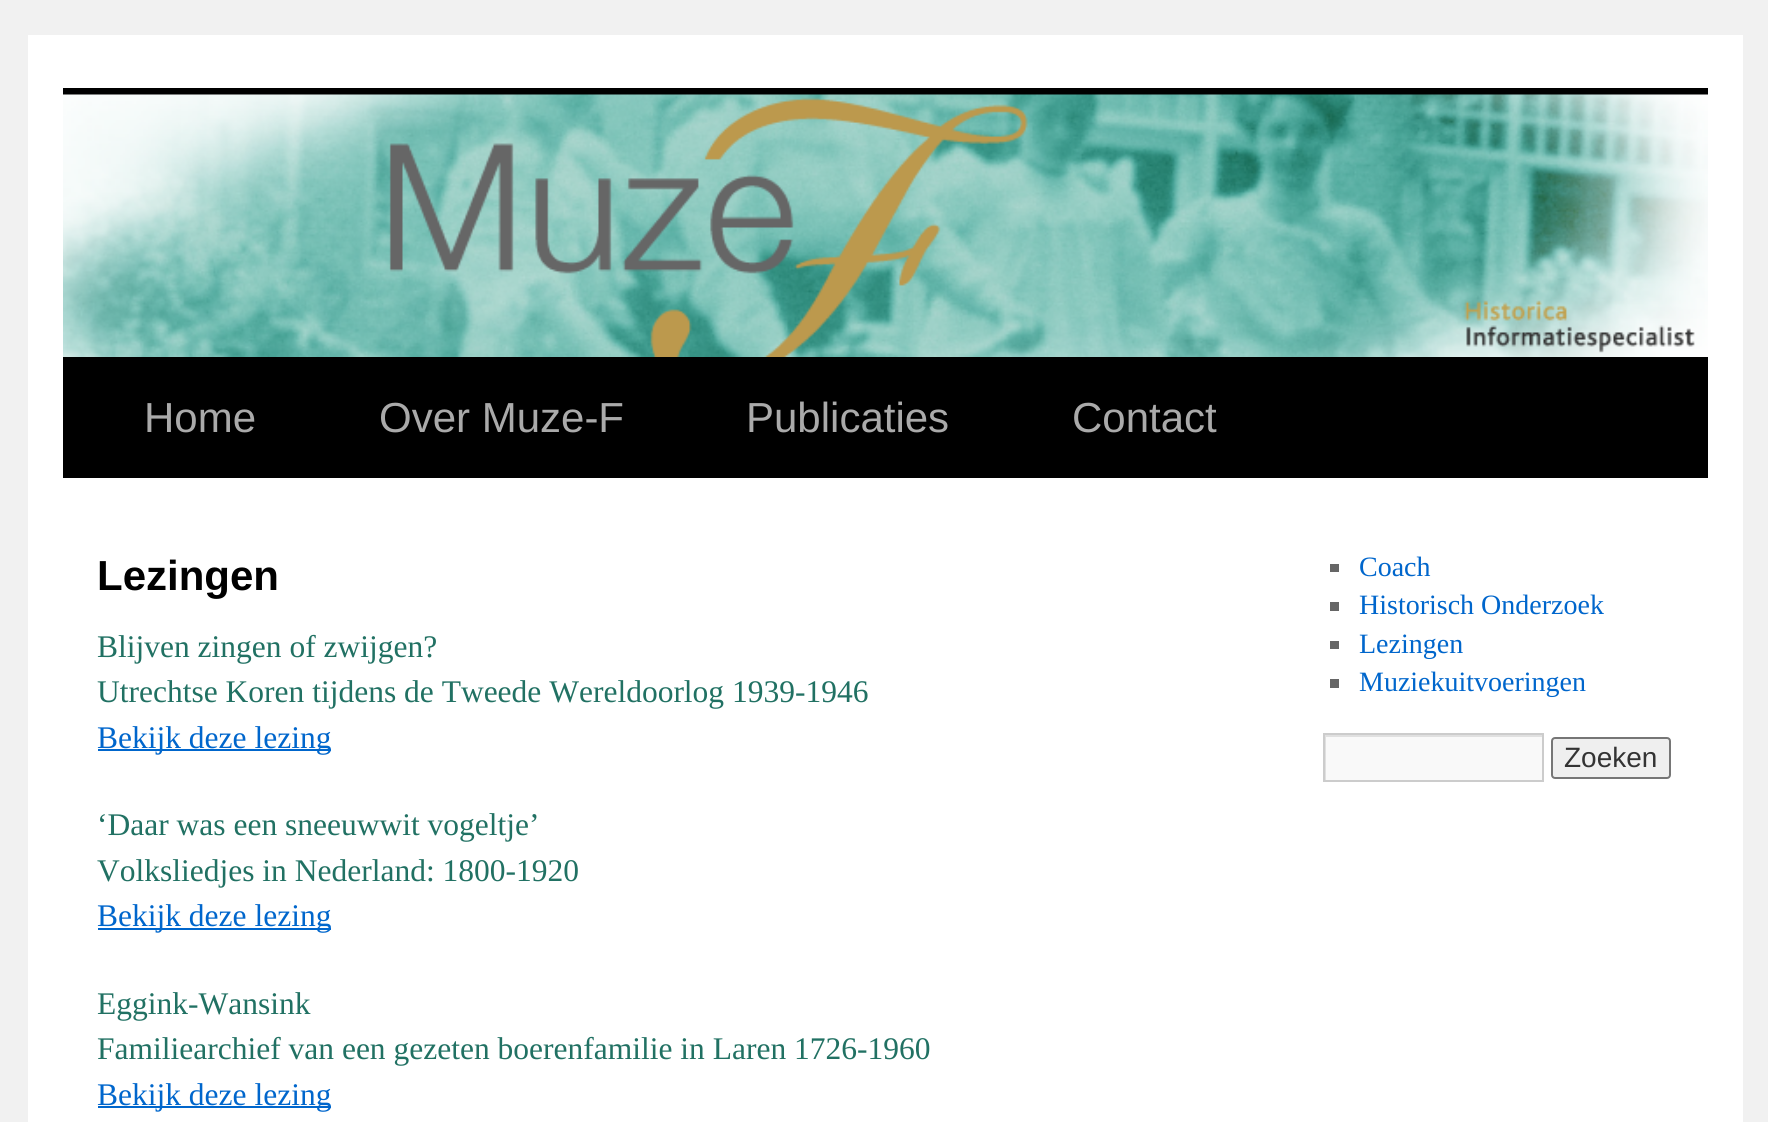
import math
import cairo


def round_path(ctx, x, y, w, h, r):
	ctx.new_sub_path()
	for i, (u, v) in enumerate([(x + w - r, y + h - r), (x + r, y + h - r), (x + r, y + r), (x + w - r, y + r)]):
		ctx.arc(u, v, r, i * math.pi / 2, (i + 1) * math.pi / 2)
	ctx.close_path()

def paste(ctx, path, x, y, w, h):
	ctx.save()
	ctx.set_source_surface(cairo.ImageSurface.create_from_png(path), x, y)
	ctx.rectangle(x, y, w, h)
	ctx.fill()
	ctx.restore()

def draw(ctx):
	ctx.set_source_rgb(0.945, 0.945, 0.945)
	ctx.paint()
	ctx.set_source_rgb(1, 1, 1)
	ctx.rectangle(28, 35, 1715, 1087)
	ctx.fill()
	ctx.set_source_rgb(0, 0, 0)
	ctx.rectangle(63, 88, 1645, 7)
	ctx.rectangle(63, 357, 1645, 121)
	ctx.fill()
	paste(ctx, 'media/1.png', 63, 94, 1645, 263)
	ctx.select_font_face('Liberation Sans')
	ctx.set_font_size(42)
	ctx.set_source_rgb(0.667, 0.667, 0.667)
	for x, y, s in [
		(144, 432, 'Home'),
		(379, 432, 'Over Muze-F'),
		(746, 432, 'Publicaties'),
		(1072, 432, 'Contact'),
	]:
		ctx.move_to(x, y)
		ctx.show_text(s)
	ctx.select_font_face('Liberation Sans', cairo.FONT_SLANT_NORMAL, cairo.FONT_WEIGHT_BOLD)
	ctx.set_source_rgb(0, 0, 0)
	ctx.move_to(97, 590)
	ctx.show_text('Lezingen')
	ctx.select_font_face('Liberation Serif')
	ctx.set_font_size(31.5)
	ctx.set_source_rgb(0.129, 0.443, 0.388)
	ctx.move_to(97, 657)
	ctx.show_text('Blijven zingen of zwijgen?')
	ctx.move_to(97, 702)
	ctx.show_text('Utrechtse Koren tijdens de Tweede Wereldoorlog 1939-1946')
	ctx.set_source_rgb(0, 0.4, 0.8)
	ctx.rectangle(98, 749, 233, 2)
	ctx.fill()
	ctx.move_to(97, 748)
	ctx.show_text('Bekijk deze lezing')
	ctx.set_source_rgb(0.129, 0.443, 0.388)
	ctx.move_to(97, 835)
	ctx.show_text('‘Daar was een sneeuwwit vogeltje’')
	ctx.move_to(97, 881)
	ctx.show_text('Volksliedjes in Nederland: 1800-1920')
	ctx.set_source_rgb(0, 0.4, 0.8)
	ctx.rectangle(98, 928, 233, 2)
	ctx.fill()
	ctx.move_to(97, 926)
	ctx.show_text('Bekijk deze lezing')
	ctx.set_source_rgb(0.129, 0.443, 0.388)
	ctx.move_to(97, 1014)
	ctx.show_text('Eggink-Wansink')
	ctx.move_to(97, 1059)
	ctx.show_text('Familiearchief van een gezeten boerenfamilie in Laren 1726-1960')
	ctx.set_source_rgb(0, 0.4, 0.8)
	ctx.rectangle(98, 1106, 233, 2)
	ctx.fill()
	ctx.move_to(97, 1105)
	ctx.show_text('Bekijk deze lezing')
	ctx.set_source_rgb(0.4, 0.4, 0.4)
	ctx.rectangle(1330, 564, 9, 8)
	ctx.fill()
	ctx.set_font_size(28)
	ctx.set_source_rgb(0, 0.4, 0.8)
	ctx.move_to(1359, 576)
	ctx.show_text('Coach')
	ctx.set_source_rgb(0.4, 0.4, 0.4)
	ctx.rectangle(1330, 602, 9, 9)
	ctx.fill()
	ctx.set_source_rgb(0, 0.4, 0.8)
	ctx.move_to(1359, 614)
	ctx.show_text('Historisch Onderzoek')
	ctx.set_source_rgb(0.4, 0.4, 0.4)
	ctx.rectangle(1330, 641, 9, 8)
	ctx.fill()
	ctx.set_source_rgb(0, 0.4, 0.8)
	ctx.move_to(1359, 653)
	ctx.show_text('Lezingen')
	ctx.set_source_rgb(0.4, 0.4, 0.4)
	ctx.rectangle(1330, 679, 9, 9)
	ctx.fill()
	ctx.set_source_rgb(0, 0.4, 0.8)
	ctx.move_to(1359, 691)
	ctx.show_text('Muziekuitvoeringen')
	ctx.set_source_rgb(0.976, 0.976, 0.976)
	ctx.rectangle(1326, 737, 216, 43)
	ctx.fill()
	ctx.save()
	ctx.rectangle(1325, 735, 217, 46)
	ctx.clip()
	ctx.set_source_rgb(0.878, 0.878, 0.878)
	ctx.set_fill_rule(cairo.FILL_RULE_EVEN_ODD)
	ctx.new_path()
	ctx.move_to(1152, 562)
	ctx.line_to(1715, 562)
	ctx.line_to(1715, 954)
	ctx.line_to(1152, 954)
	ctx.close_path()
	ctx.move_to(1326, 737)
	ctx.line_to(1544, 737)
	ctx.line_to(1544, 782)
	ctx.line_to(1326, 782)
	ctx.close_path()
	ctx.fill()
	ctx.restore()
	ctx.rectangle(1324, 734, 219, 47)
	ctx.set_source_rgb(0.8, 0.8, 0.8)
	ctx.stroke()
	ctx.set_source_rgb(0.937, 0.937, 0.937)
	round_path(ctx, 1552, 738, 118, 40, 3)
	ctx.fill_preserve()
	ctx.set_source_rgb(0.463, 0.463, 0.463)
	ctx.stroke()
	ctx.select_font_face('Liberation Sans')
	ctx.set_source_rgb(0.2, 0.2, 0.2)
	ctx.move_to(1564, 767)
	ctx.show_text('Zoeken')


surface = cairo.ImageSurface(cairo.FORMAT_RGB24, 1768, 1122)
ctx = cairo.Context(surface)
options = cairo.FontOptions()
options.set_hint_metrics(cairo.HINT_METRICS_OFF)
options.set_hint_style(cairo.HINT_STYLE_NONE)
ctx.set_font_options(options)
ctx.set_miter_limit(4)
draw(ctx)
surface.write_to_png('image.png')
